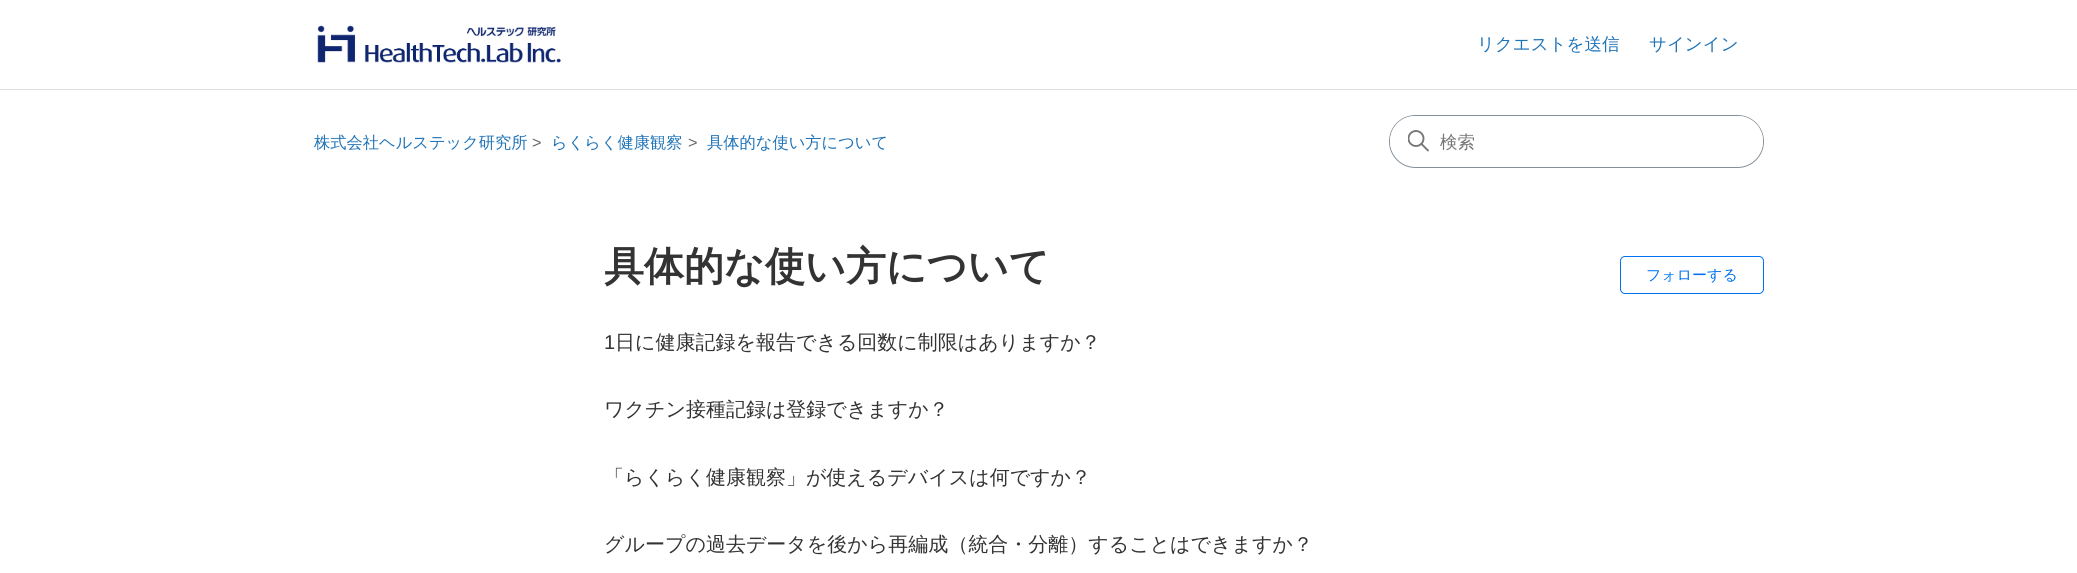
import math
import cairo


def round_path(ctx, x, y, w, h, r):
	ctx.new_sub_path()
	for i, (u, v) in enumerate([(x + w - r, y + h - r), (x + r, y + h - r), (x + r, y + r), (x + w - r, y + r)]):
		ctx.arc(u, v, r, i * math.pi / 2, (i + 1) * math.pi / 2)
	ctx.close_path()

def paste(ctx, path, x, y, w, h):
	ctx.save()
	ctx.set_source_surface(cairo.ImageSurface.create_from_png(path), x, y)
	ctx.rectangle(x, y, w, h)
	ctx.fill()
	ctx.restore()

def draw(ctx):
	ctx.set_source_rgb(1, 1, 1)
	ctx.paint()
	paste(ctx, 'media/1.png', 317, 25, 244, 38)
	ctx.select_font_face('WenQuanYi Zen Hei Medium')
	ctx.set_font_size(17.5)
	ctx.set_source_rgb(0.122, 0.451, 0.718)
	ctx.move_to(1477, 50)
	ctx.show_text('リクエストを送信')
	ctx.move_to(1649, 50)
	ctx.show_text('サインイン')
	ctx.set_source_rgb(0.867, 0.867, 0.867)
	ctx.rectangle(0, 89, 2077, 1)
	ctx.fill()
	ctx.set_font_size(16.25)
	ctx.set_source_rgb(0.122, 0.451, 0.718)
	ctx.move_to(314, 148)
	ctx.show_text('株式会社ヘルステック研究所')
	ctx.select_font_face('Liberation Sans')
	ctx.set_source_rgb(0.4, 0.4, 0.4)
	ctx.move_to(532, 148)
	ctx.show_text('>')
	ctx.select_font_face('WenQuanYi Zen Hei Medium')
	ctx.set_source_rgb(0.122, 0.451, 0.718)
	ctx.move_to(551, 148)
	ctx.show_text('らくらく健康観察')
	ctx.select_font_face('Liberation Sans')
	ctx.set_source_rgb(0.4, 0.4, 0.4)
	ctx.move_to(688, 148)
	ctx.show_text('>')
	ctx.select_font_face('WenQuanYi Zen Hei Medium')
	ctx.set_source_rgb(0.122, 0.451, 0.718)
	ctx.move_to(707, 148)
	ctx.show_text('具体的な使い方について')
	round_path(ctx, 1389.5, 115.5, 374, 52, 26)
	ctx.set_source_rgb(0.518, 0.561, 0.6)
	ctx.set_line_width(1)
	ctx.stroke()
	ctx.set_source_rgb(1, 1, 1)
	round_path(ctx, 1390, 116, 373, 50, 25)
	ctx.fill()
	ctx.save()
	ctx.rectangle(1408, 130, 22, 23)
	ctx.clip()
	ctx.arc(1416, 138.5, 7.5, 0, 2 * math.pi)
	ctx.set_source_rgb(0.467, 0.467, 0.467)
	ctx.set_line_width(1.9)
	ctx.stroke()
	ctx.restore()
	ctx.new_path()
	ctx.move_to(1428, 150.5)
	ctx.line_to(1421.5, 144)
	ctx.set_source_rgb(0.467, 0.467, 0.467)
	ctx.set_line_width(1.9)
	ctx.set_line_cap(cairo.LINE_CAP_ROUND)
	ctx.stroke()
	ctx.set_font_size(17.5)
	ctx.set_source_rgb(0.459, 0.459, 0.459)
	ctx.move_to(1440, 148)
	ctx.show_text('検索')
	ctx.select_font_face('WenQuanYi Zen Hei', cairo.FONT_SLANT_NORMAL, cairo.FONT_WEIGHT_BOLD)
	ctx.set_font_size(40)
	ctx.set_source_rgb(0.2, 0.2, 0.2)
	ctx.move_to(604, 280)
	ctx.show_text('具体的な使い方について')
	round_path(ctx, 1620.5, 256.5, 143, 37, 4.5)
	ctx.set_source_rgb(0, 0.447, 0.937)
	ctx.set_line_width(1)
	ctx.set_line_cap(cairo.LINE_CAP_BUTT)
	ctx.stroke()
	ctx.select_font_face('WenQuanYi Zen Hei Medium')
	ctx.set_font_size(15)
	ctx.move_to(1646, 280)
	ctx.show_text('フォローする')
	ctx.select_font_face('Liberation Sans')
	ctx.set_font_size(20)
	ctx.set_source_rgb(0.2, 0.2, 0.2)
	ctx.move_to(604, 349)
	ctx.show_text('1')
	ctx.select_font_face('WenQuanYi Zen Hei Medium')
	for x, y, s in [
		(615, 349, '日に健康記録を報告できる回数に制限はありますか？'),
		(604, 416, 'ワクチン接種記録は登録できますか？'),
		(604, 484, '「らくらく健康観察」が使えるデバイスは何ですか？'),
		(604, 551, 'グループの過去データを後から再編成（統合・分離）することはできますか？'),
	]:
		ctx.move_to(x, y)
		ctx.show_text(s)


surface = cairo.ImageSurface(cairo.FORMAT_RGB24, 2077, 573)
ctx = cairo.Context(surface)
options = cairo.FontOptions()
options.set_hint_metrics(cairo.HINT_METRICS_OFF)
options.set_hint_style(cairo.HINT_STYLE_NONE)
ctx.set_font_options(options)
ctx.set_miter_limit(4)
draw(ctx)
surface.write_to_png('image.png')
